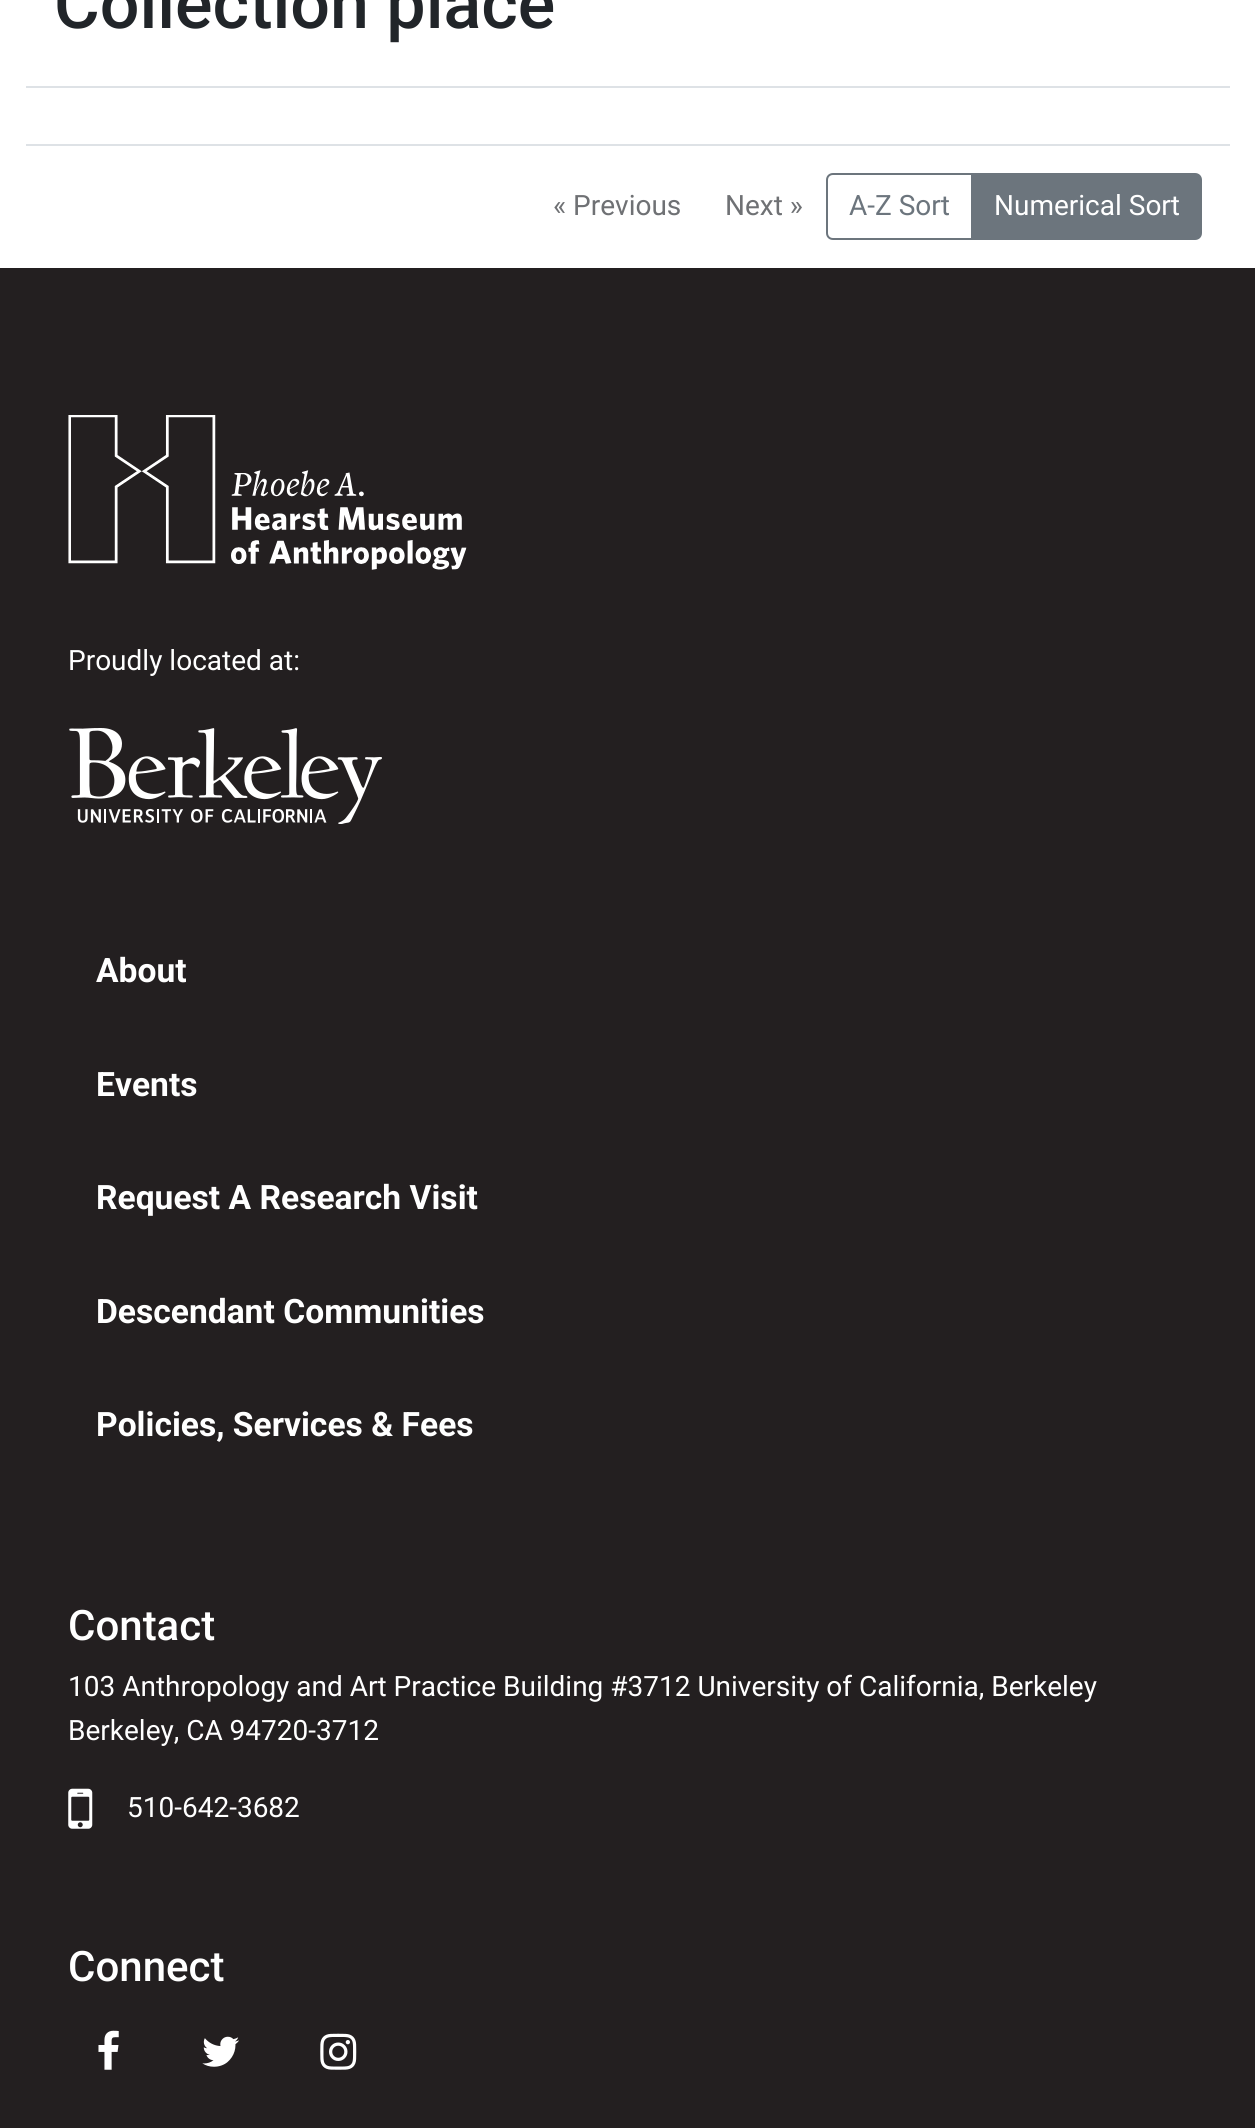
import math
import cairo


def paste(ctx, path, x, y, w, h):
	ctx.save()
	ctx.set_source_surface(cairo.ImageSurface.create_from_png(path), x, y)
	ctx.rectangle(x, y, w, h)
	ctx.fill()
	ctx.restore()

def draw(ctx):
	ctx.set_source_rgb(1, 1, 1)
	ctx.paint()
	ctx.set_source_rgb(0.871, 0.886, 0.902)
	ctx.rectangle(26, 86, 1204, 2)
	ctx.fill()
	ctx.select_font_face('Roboto Medium')
	ctx.set_font_size(70)
	ctx.set_source_rgb(0.129, 0.145, 0.161)
	ctx.move_to(54, 28)
	ctx.show_text('Collection place')
	ctx.set_source_rgb(0.871, 0.886, 0.902)
	ctx.rectangle(26, 144, 1204, 2)
	ctx.fill()
	ctx.select_font_face('Roboto')
	ctx.set_font_size(28)
	ctx.set_source_rgb(0.435, 0.443, 0.455)
	ctx.move_to(553, 215)
	ctx.show_text('« Previous')
	ctx.move_to(725, 215)
	ctx.show_text('Next »')
	ctx.new_path()
	ctx.move_to(833, 174)
	ctx.line_to(972, 174)
	ctx.line_to(972, 239)
	ctx.line_to(833, 239)
	ctx.curve_to(829.5, 239, 827, 236.5, 827, 233)
	ctx.line_to(827, 180)
	ctx.curve_to(827, 176.5, 829.5, 174, 833, 174)
	ctx.close_path()
	ctx.set_source_rgb(0.424, 0.459, 0.49)
	ctx.stroke()
	ctx.move_to(849, 215)
	ctx.show_text('A-Z Sort')
	ctx.new_path()
	ctx.move_to(972, 174)
	ctx.line_to(1195, 174)
	ctx.curve_to(1198.5, 174, 1201, 176.5, 1201, 180)
	ctx.line_to(1201, 233)
	ctx.curve_to(1201, 236.5, 1198.5, 239, 1195, 239)
	ctx.line_to(972, 239)
	ctx.close_path()
	ctx.fill_preserve()
	ctx.stroke()
	ctx.set_source_rgb(1, 1, 1)
	ctx.move_to(994, 215)
	ctx.show_text('Numerical Sort')
	ctx.set_source_rgb(0.137, 0.122, 0.125)
	ctx.rectangle(0, 268, 1255, 1860)
	ctx.fill()
	paste(ctx, 'media/1.png', 68, 415, 399, 155)
	ctx.set_source_rgb(1, 1, 1)
	ctx.move_to(68, 670)
	ctx.show_text('Proudly located at:')
	paste(ctx, 'media/2.png', 69, 728, 313, 96)
	ctx.select_font_face('Roboto', cairo.FONT_SLANT_NORMAL, cairo.FONT_WEIGHT_BOLD)
	ctx.set_font_size(33.6)
	for x, y, s in [
		(96, 982, 'About'),
		(96, 1096, 'Events'),
		(96, 1209, 'Request A Research Visit'),
		(96, 1323, 'Descendant Communities'),
		(96, 1436, 'Policies, Services & Fees'),
	]:
		ctx.move_to(x, y)
		ctx.show_text(s)
	ctx.select_font_face('Roboto Medium')
	ctx.set_font_size(42)
	ctx.move_to(68, 1640)
	ctx.show_text('Contact')
	ctx.select_font_face('Roboto')
	ctx.set_font_size(28)
	ctx.move_to(68, 1696)
	ctx.show_text('103 Anthropology and Art Practice Building #3712 University of California, Berkeley')
	ctx.move_to(68, 1740)
	ctx.show_text('Berkeley, CA 94720-3712')
	paste(ctx, 'media/3.png', 68, 1788, 25, 41)
	ctx.move_to(127, 1817)
	ctx.show_text('510-642-3682')
	ctx.select_font_face('Roboto Medium')
	ctx.set_font_size(42)
	ctx.move_to(68, 1981)
	ctx.show_text('Connect')
	paste(ctx, 'media/4.png', 98, 2030, 21, 40)
	paste(ctx, 'media/5.png', 202, 2036, 37, 31)
	paste(ctx, 'media/6.png', 320, 2033, 37, 37)


surface = cairo.ImageSurface(cairo.FORMAT_RGB24, 1255, 2128)
ctx = cairo.Context(surface)
options = cairo.FontOptions()
options.set_hint_metrics(cairo.HINT_METRICS_OFF)
options.set_hint_style(cairo.HINT_STYLE_NONE)
ctx.set_font_options(options)
ctx.set_miter_limit(4)
draw(ctx)
surface.write_to_png('image.png')
